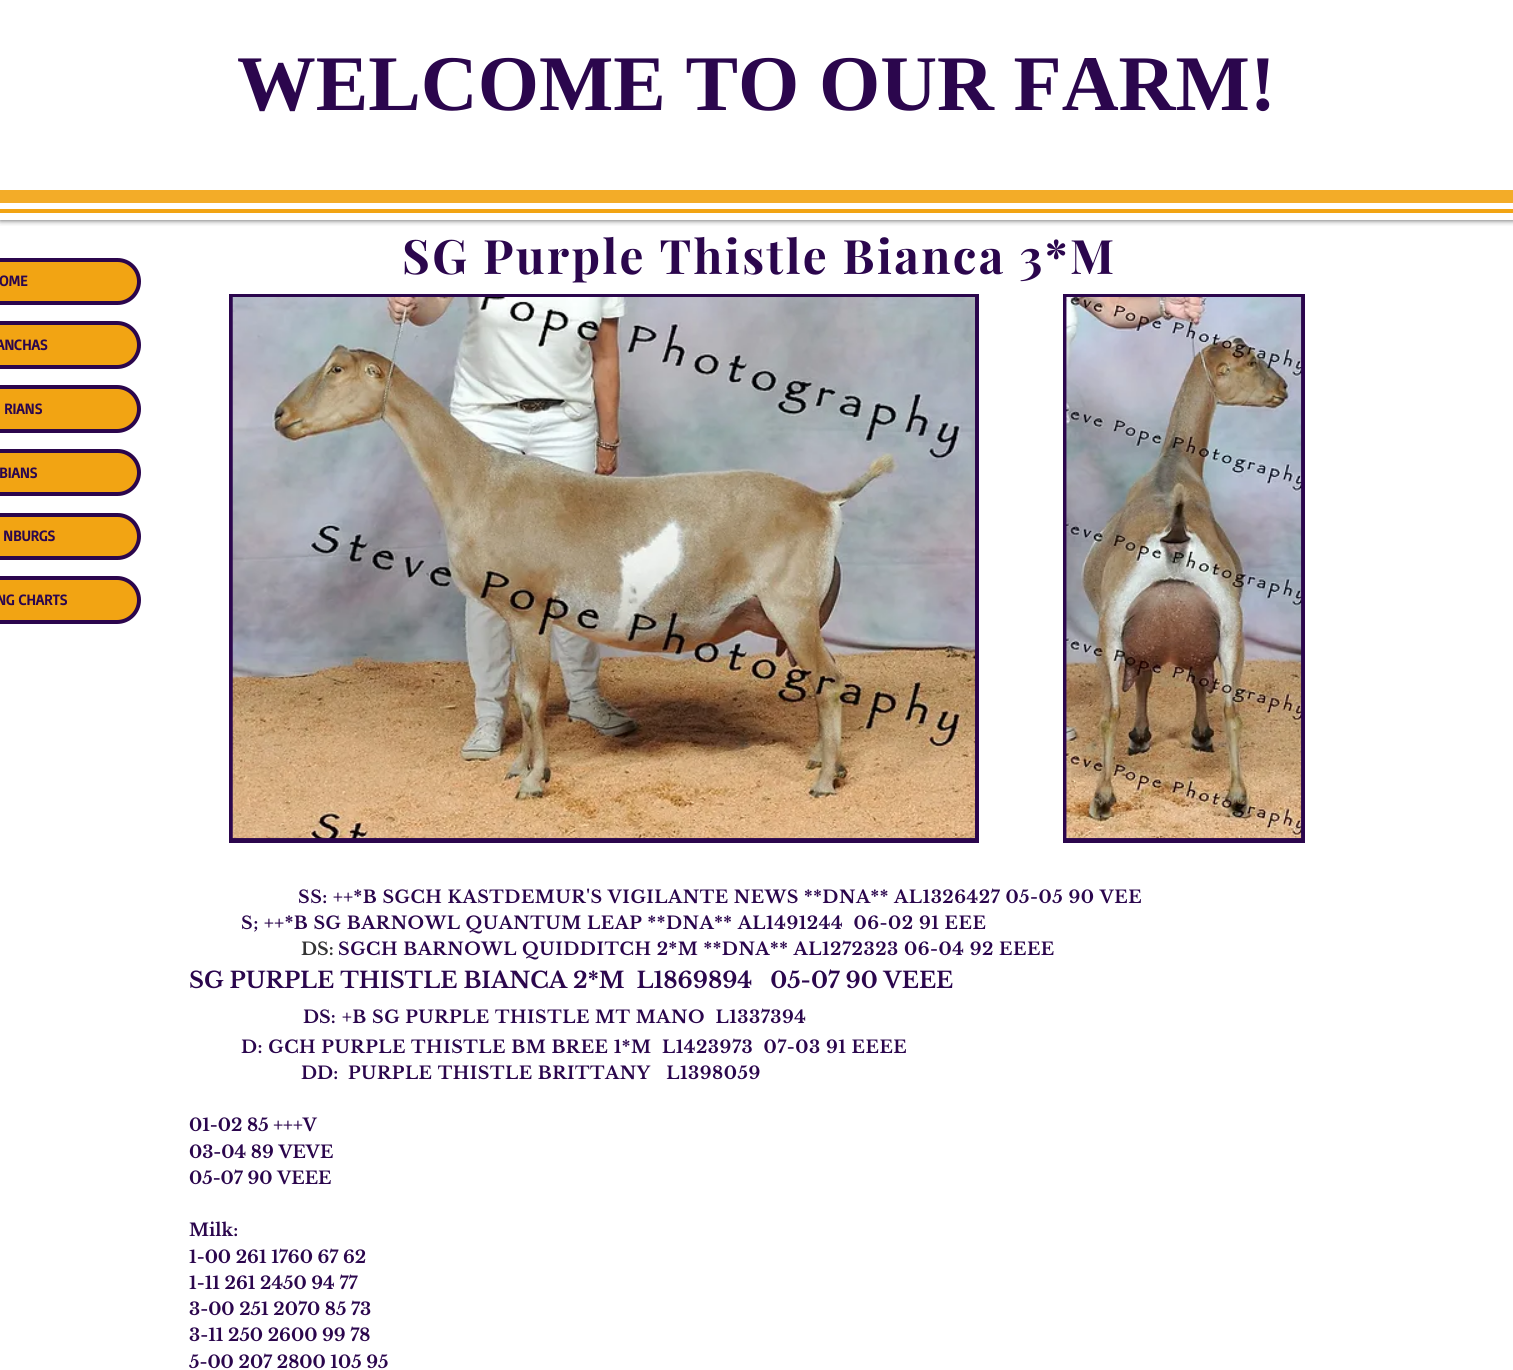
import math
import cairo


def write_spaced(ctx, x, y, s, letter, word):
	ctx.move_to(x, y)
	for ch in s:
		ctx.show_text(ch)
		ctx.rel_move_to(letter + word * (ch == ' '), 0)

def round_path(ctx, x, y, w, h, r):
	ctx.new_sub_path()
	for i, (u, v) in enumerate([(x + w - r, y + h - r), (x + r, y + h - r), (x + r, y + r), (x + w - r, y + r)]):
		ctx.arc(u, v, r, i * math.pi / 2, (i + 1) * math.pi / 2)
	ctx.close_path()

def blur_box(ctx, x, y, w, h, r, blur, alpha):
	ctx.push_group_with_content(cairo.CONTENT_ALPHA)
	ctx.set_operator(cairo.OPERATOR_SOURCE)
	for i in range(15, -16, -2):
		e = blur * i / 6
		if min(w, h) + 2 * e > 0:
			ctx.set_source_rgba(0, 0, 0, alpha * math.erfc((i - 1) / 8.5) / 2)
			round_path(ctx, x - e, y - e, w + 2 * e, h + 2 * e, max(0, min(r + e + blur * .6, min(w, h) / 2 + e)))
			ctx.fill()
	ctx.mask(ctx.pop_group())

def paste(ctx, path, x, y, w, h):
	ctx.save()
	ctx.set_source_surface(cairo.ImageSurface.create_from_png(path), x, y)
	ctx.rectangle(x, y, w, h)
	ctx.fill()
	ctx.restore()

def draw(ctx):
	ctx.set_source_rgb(1, 1, 1)
	ctx.paint()
	ctx.save()
	ctx.rectangle(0, 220, 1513, 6)
	ctx.clip()
	ctx.set_source_rgb(0, 0, 0)
	blur_box(ctx, 0, -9, 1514, 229, 0, 3, 0.7)
	ctx.restore()
	ctx.set_source_rgb(0.949, 0.643, 0.075)
	ctx.rectangle(0, 209, 1513, 4)
	ctx.fill()
	ctx.set_source_rgb(0.953, 0.675, 0.157)
	ctx.rectangle(0, 190, 1513, 13)
	ctx.fill()
	ctx.select_font_face('Liberation Serif', cairo.FONT_SLANT_NORMAL, cairo.FONT_WEIGHT_BOLD)
	ctx.set_font_size(78.75)
	ctx.set_source_rgb(0.169, 0.027, 0.302)
	ctx.move_to(237, 110)
	ctx.show_text('WELCOME TO OUR FARM!')
	ctx.set_source_rgb(0.949, 0.643, 0.075)
	round_path(ctx, -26, 260, 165, 43, 21.5)
	ctx.fill_preserve()
	ctx.set_source_rgb(0.169, 0.027, 0.302)
	ctx.set_line_width(4)
	ctx.stroke()
	ctx.select_font_face('Basic', cairo.FONT_SLANT_NORMAL, cairo.FONT_WEIGHT_BOLD)
	ctx.set_font_size(15)
	ctx.move_to(-1, 286)
	ctx.show_text('OME')
	ctx.set_source_rgb(0.949, 0.643, 0.075)
	round_path(ctx, -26, 323, 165, 44, 22)
	ctx.fill_preserve()
	ctx.set_source_rgb(0.169, 0.027, 0.302)
	ctx.stroke()
	ctx.move_to(-4, 350)
	ctx.show_text('ANCHAS')
	ctx.set_source_rgb(0.949, 0.643, 0.075)
	round_path(ctx, -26, 387, 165, 44, 22)
	ctx.fill_preserve()
	ctx.set_source_rgb(0.169, 0.027, 0.302)
	ctx.stroke()
	ctx.move_to(4, 414)
	ctx.show_text('RIANS')
	ctx.set_source_rgb(0.949, 0.643, 0.075)
	round_path(ctx, -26, 451, 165, 43, 21.5)
	ctx.fill_preserve()
	ctx.set_source_rgb(0.169, 0.027, 0.302)
	ctx.stroke()
	ctx.move_to(-1, 478)
	ctx.show_text('BIANS')
	ctx.set_source_rgb(0.949, 0.643, 0.075)
	round_path(ctx, -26, 515, 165, 43, 21.5)
	ctx.fill_preserve()
	ctx.set_source_rgb(0.169, 0.027, 0.302)
	ctx.stroke()
	ctx.move_to(3, 541)
	ctx.show_text('NBURGS')
	ctx.set_source_rgb(0.949, 0.643, 0.075)
	round_path(ctx, -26, 578, 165, 44, 22)
	ctx.fill_preserve()
	ctx.set_source_rgb(0.169, 0.027, 0.302)
	ctx.stroke()
	ctx.move_to(-4, 605)
	ctx.show_text('NG CHARTS')
	ctx.select_font_face('Playfair Display', cairo.FONT_SLANT_NORMAL, cairo.FONT_WEIGHT_BOLD)
	ctx.set_font_size(47.5)
	write_spaced(ctx, 402, 274, 'SG Purple Thistle Bianca 3*M', 2.4, 0)
	ctx.rectangle(229, 294, 750, 549)
	ctx.fill()
	paste(ctx, 'media/1.png', 232, 297, 743, 542)
	ctx.rectangle(1063, 294, 242, 549)
	ctx.fill()
	paste(ctx, 'media/2.png', 1066, 297, 236, 542)
	ctx.select_font_face('Libre Baskerville', cairo.FONT_SLANT_NORMAL, cairo.FONT_WEIGHT_BOLD)
	ctx.set_font_size(17.5)
	write_spaced(ctx, 298, 903, 'SS: ++*B SGCH KASTDEMUR\'S VIGILANTE NEWS **DNA** AL1326427 05-05 90 VEE', 0.53, 0)
	write_spaced(ctx, 241, 929, 'S; ++*B SG BARNOWL QUANTUM LEAP **DNA** AL1491244  06-02 91 EEE', 0.53, 0)
	ctx.set_source_rgb(0.2, 0.2, 0.2)
	ctx.move_to(301, 955)
	ctx.show_text('DS:')
	ctx.set_source_rgb(0.169, 0.027, 0.302)
	write_spaced(ctx, 338, 955, 'SGCH BARNOWL QUIDDITCH 2*M **DNA** AL1272323 06-04 92 EEEE', 0.53, 0)
	ctx.set_font_size(22.5)
	ctx.move_to(189, 988)
	ctx.show_text('SG PURPLE THISTLE BIANCA 2*M  L1869894   05-07 90 VEEE')
	ctx.set_font_size(17.5)
	ctx.move_to(303, 1023)
	ctx.show_text('DS:')
	write_spaced(ctx, 342, 1023, '+B SG PURPLE THISTLE MT MANO  L1337394', 0.53, 0)
	write_spaced(ctx, 241, 1053, 'D: GCH PURPLE THISTLE BM BREE 1*M  L1423973  07-03 91 EEEE', 0.53, 0)
	ctx.move_to(301, 1079)
	ctx.show_text('DD:')
	write_spaced(ctx, 348, 1079, 'PURPLE THISTLE BRITTANY   L1398059', 0.53, 0)
	for x, y, s in [
		(189, 1131, '01-02 85 +++V'),
		(189, 1158, '03-04 89 VEVE'),
		(189, 1184, '05-07 90 VEEE'),
		(189, 1236, 'Milk:'),
		(189, 1263, '1-00 261 1760 67 62'),
		(189, 1289, '1-11 261 2450 94 77'),
		(189, 1315, '3-00 251 2070 85 73'),
		(189, 1341, '3-11 250 2600 99 78'),
		(189, 1368, '5-00 207 2800 105 95'),
	]:
		ctx.move_to(x, y)
		ctx.show_text(s)


surface = cairo.ImageSurface(cairo.FORMAT_RGB24, 1513, 1370)
ctx = cairo.Context(surface)
options = cairo.FontOptions()
options.set_hint_metrics(cairo.HINT_METRICS_OFF)
options.set_hint_style(cairo.HINT_STYLE_NONE)
ctx.set_font_options(options)
ctx.set_miter_limit(4)
draw(ctx)
surface.write_to_png('image.png')
